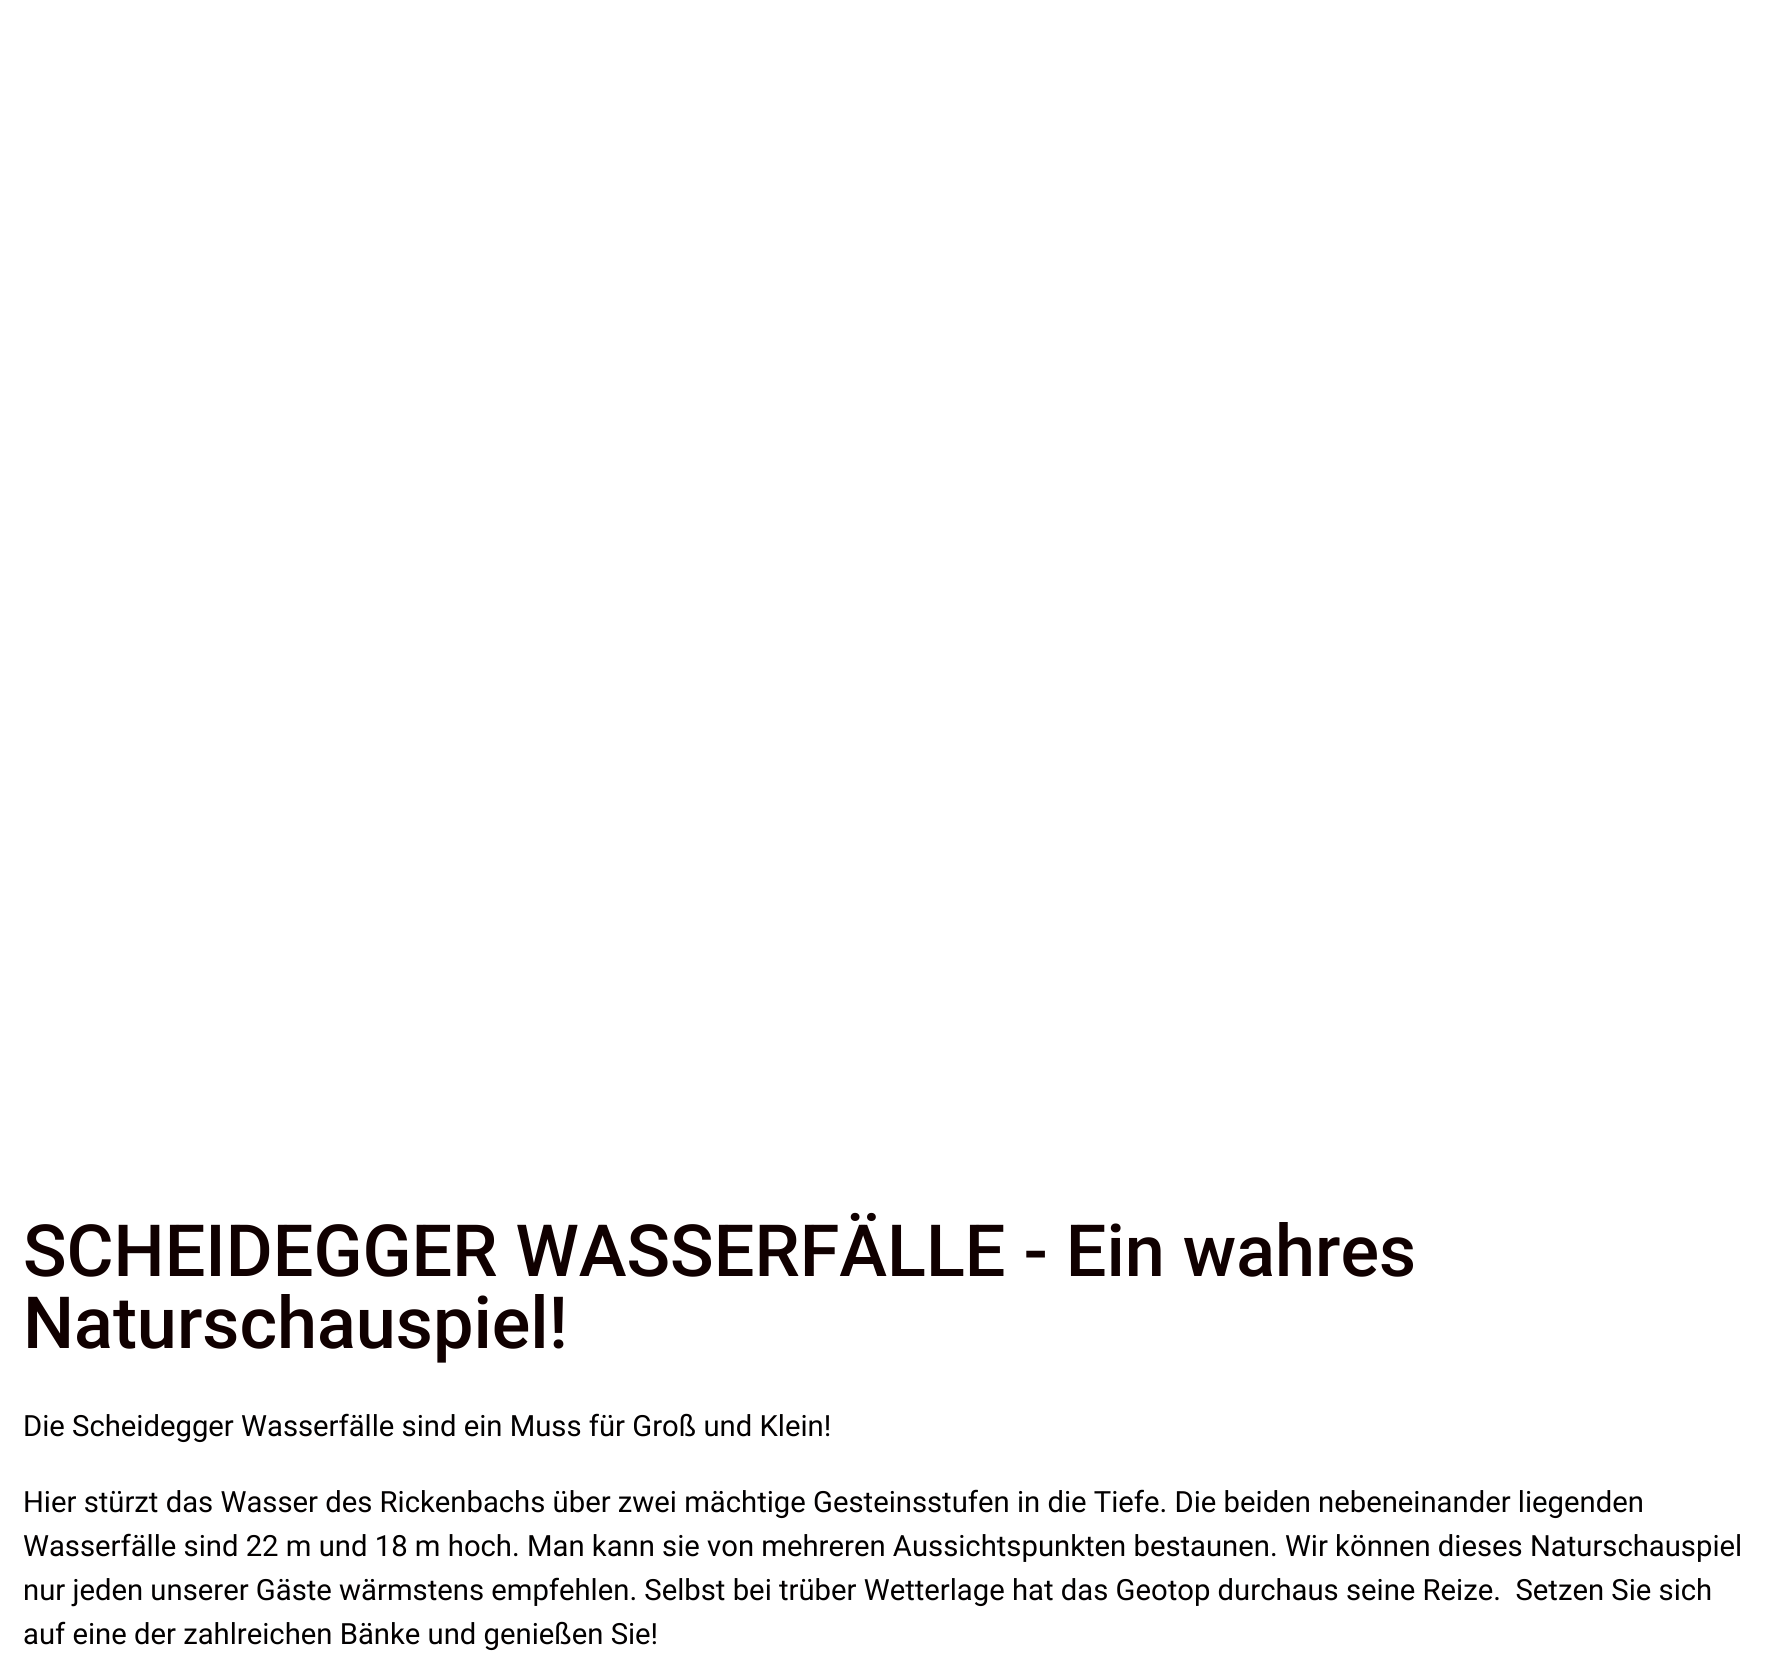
import math
import cairo


def draw(ctx):
	ctx.set_source_rgb(1, 1, 1)
	ctx.paint()
	ctx.select_font_face('Roboto Medium')
	ctx.set_font_size(72)
	ctx.set_source_rgb(0.063, 0, 0)
	ctx.move_to(23, 1276)
	ctx.show_text('SCHEIDEGGER WASSERFÄLLE - Ein wahres')
	ctx.move_to(23, 1348)
	ctx.show_text('Naturschauspiel!')
	ctx.select_font_face('Roboto')
	ctx.set_font_size(29.25)
	ctx.set_source_rgb(0.008, 0, 0)
	for x, y, s in [
		(23, 1436, 'Die Scheidegger Wasserfälle sind ein Muss für Groß und Klein!'),
		(23, 1512, 'Hier stürzt das Wasser des Rickenbachs über zwei mächtige Gesteinsstufen in die Tiefe. Die beiden nebeneinander liegenden'),
		(23, 1556, 'Wasserfälle sind 22 m und 18 m hoch. Man kann sie von mehreren Aussichtspunkten bestaunen. Wir können dieses Naturschauspiel'),
		(23, 1600, 'nur jeden unserer Gäste wärmstens empfehlen. Selbst bei trüber Wetterlage hat das Geotop durchaus seine Reize.  Setzen Sie sich'),
		(23, 1644, 'auf eine der zahlreichen Bänke und genießen Sie!'),
	]:
		ctx.move_to(x, y)
		ctx.show_text(s)


surface = cairo.ImageSurface(cairo.FORMAT_RGB24, 1782, 1680)
ctx = cairo.Context(surface)
options = cairo.FontOptions()
options.set_hint_metrics(cairo.HINT_METRICS_OFF)
options.set_hint_style(cairo.HINT_STYLE_NONE)
ctx.set_font_options(options)
ctx.set_miter_limit(4)
draw(ctx)
surface.write_to_png('image.png')
